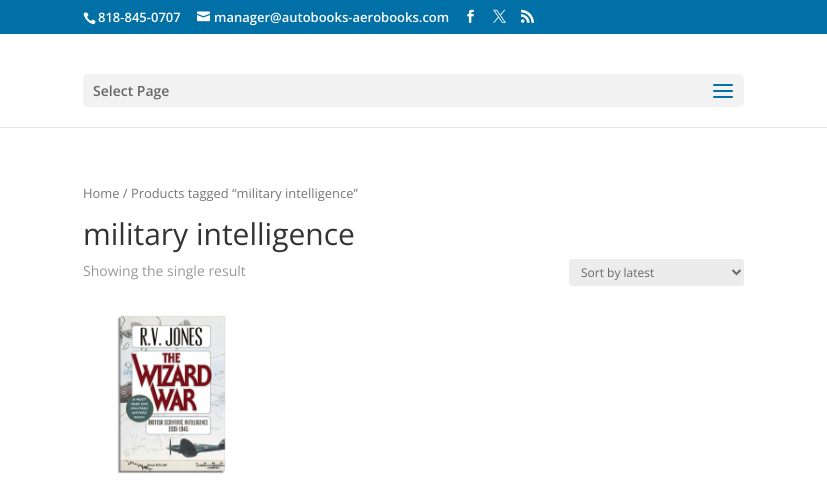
import math
import cairo


def round_path(ctx, x, y, w, h, r):
	ctx.new_sub_path()
	for i, (u, v) in enumerate([(x + w - r, y + h - r), (x + r, y + h - r), (x + r, y + r), (x + w - r, y + r)]):
		ctx.arc(u, v, r, i * math.pi / 2, (i + 1) * math.pi / 2)
	ctx.close_path()

def paste(ctx, path, x, y, w, h):
	ctx.save()
	ctx.set_source_surface(cairo.ImageSurface.create_from_png(path), x, y)
	ctx.rectangle(x, y, w, h)
	ctx.fill()
	ctx.restore()

def draw(ctx):
	ctx.set_source_rgb(1, 1, 1)
	ctx.paint()
	ctx.set_source_rgb(0, 0.439, 0.651)
	ctx.rectangle(0, 0, 827, 34)
	ctx.fill()
	paste(ctx, 'media/1.png', 83, 12, 13, 13)
	ctx.select_font_face('Open Sans SemiBold')
	ctx.set_font_size(13)
	ctx.set_source_rgb(1, 1, 1)
	ctx.move_to(98, 22)
	ctx.show_text('818-845-0707')
	paste(ctx, 'media/2.png', 197, 11, 13, 11)
	ctx.move_to(214, 22)
	ctx.show_text('manager@autobooks-aerobooks.com')
	paste(ctx, 'media/3.png', 467, 9, 7, 14)
	paste(ctx, 'media/4.png', 493, 9, 13, 14)
	paste(ctx, 'media/5.png', 521, 9, 13, 14)
	ctx.set_source_rgb(0.902, 0.902, 0.902)
	ctx.rectangle(0, 127, 827, 1)
	ctx.fill()
	ctx.set_source_rgb(0.949, 0.949, 0.949)
	round_path(ctx, 83, 74, 661, 33, 5)
	ctx.fill()
	ctx.set_font_size(14)
	ctx.set_source_rgb(0.4, 0.4, 0.4)
	ctx.move_to(93, 96)
	ctx.show_text('Select Page')
	paste(ctx, 'media/6.png', 713, 84, 20, 14)
	ctx.select_font_face('Open Sans')
	ctx.set_font_size(12.9)
	ctx.set_source_rgb(0.463, 0.463, 0.463)
	ctx.move_to(83, 198)
	ctx.show_text('Home / Products tagged “military intelligence”')
	ctx.set_font_size(30)
	ctx.set_source_rgb(0.2, 0.2, 0.2)
	ctx.move_to(83, 245)
	ctx.show_text('military intelligence')
	ctx.set_font_size(14)
	ctx.set_source_rgb(0.6, 0.6, 0.6)
	ctx.move_to(83, 276)
	ctx.show_text('Showing the single result')
	ctx.set_source_rgb(0.925, 0.925, 0.925)
	round_path(ctx, 569, 259, 175, 27, 3)
	ctx.fill()
	ctx.new_path()
	ctx.move_to(732.5, 270)
	ctx.line_to(736.5, 274)
	ctx.line_to(740.5, 270)
	ctx.set_source_rgb(0.4, 0.4, 0.4)
	ctx.stroke()
	ctx.set_font_size(12)
	ctx.move_to(581, 277)
	ctx.show_text('Sort by latest')
	paste(ctx, 'media/7.png', 117, 315, 109, 159)


surface = cairo.ImageSurface(cairo.FORMAT_RGB24, 827, 490)
ctx = cairo.Context(surface)
options = cairo.FontOptions()
options.set_hint_metrics(cairo.HINT_METRICS_OFF)
options.set_hint_style(cairo.HINT_STYLE_NONE)
ctx.set_font_options(options)
ctx.set_miter_limit(4)
draw(ctx)
surface.write_to_png('image.png')
